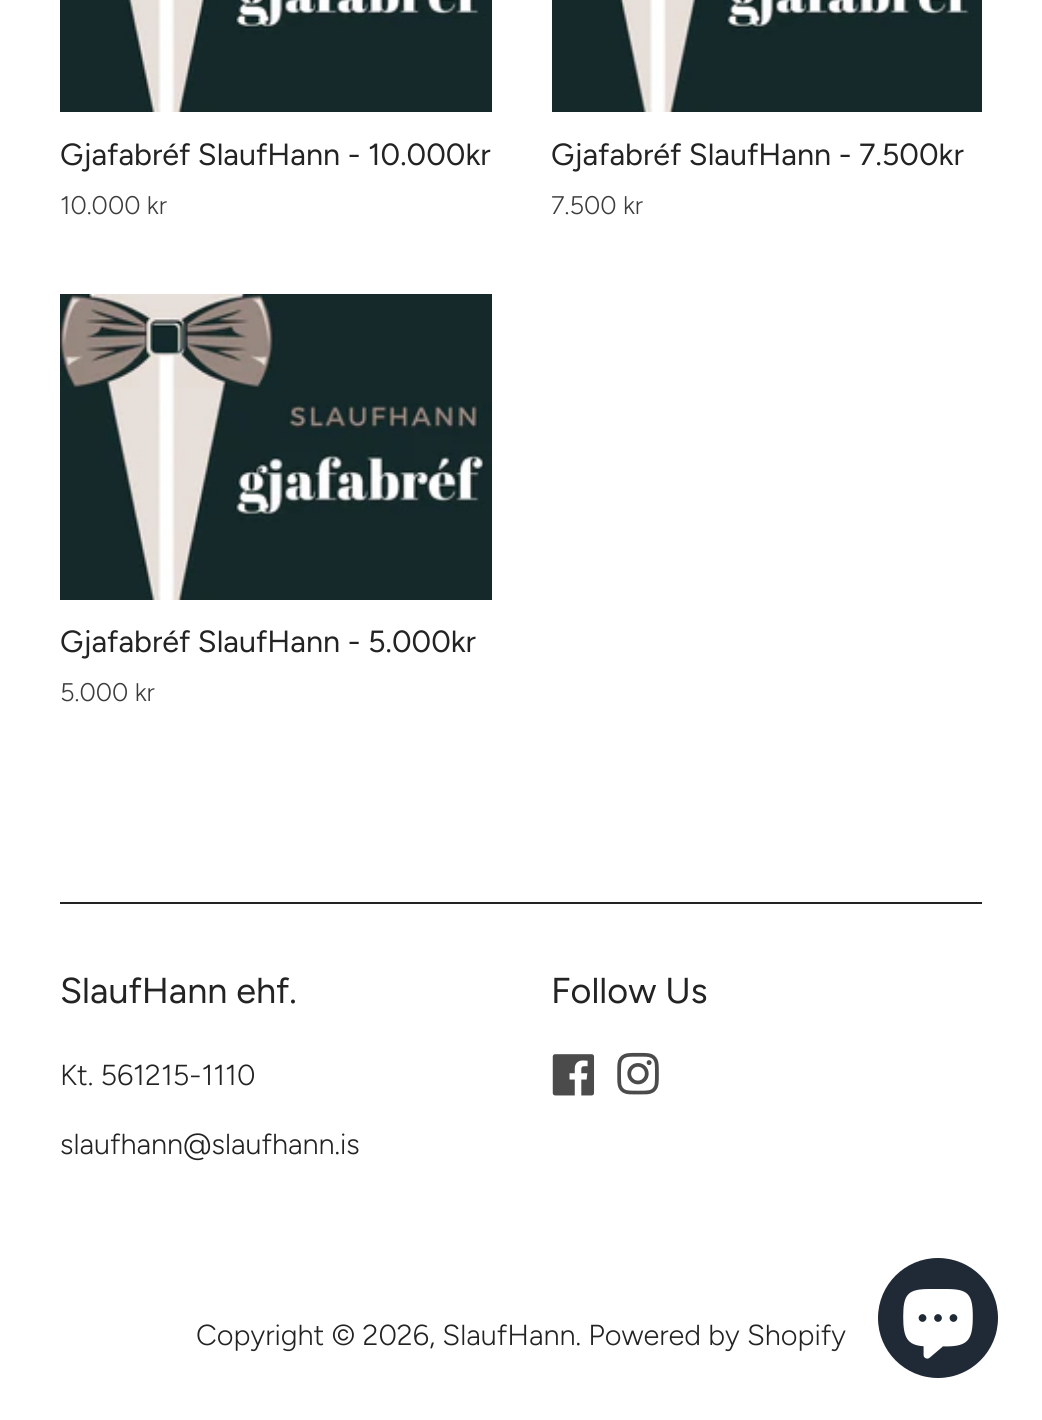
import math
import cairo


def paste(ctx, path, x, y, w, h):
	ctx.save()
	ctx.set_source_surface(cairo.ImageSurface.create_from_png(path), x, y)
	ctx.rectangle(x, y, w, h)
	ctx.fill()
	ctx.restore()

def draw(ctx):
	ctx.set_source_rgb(1, 1, 1)
	ctx.paint()
	paste(ctx, 'media/1.png', 60, 0, 432, 112)
	ctx.select_font_face('Figtree')
	ctx.set_font_size(30.6)
	ctx.set_source_rgb(0.137, 0.137, 0.137)
	ctx.move_to(60, 165)
	ctx.show_text('Gjafabréf SlaufHann - 10.000kr')
	ctx.select_font_face('Figtree Light')
	ctx.set_font_size(25.5)
	ctx.set_source_rgb(0.239, 0.239, 0.239)
	ctx.move_to(60, 214)
	ctx.show_text('10.000 kr')
	paste(ctx, 'media/2.png', 552, 0, 430, 112)
	ctx.select_font_face('Figtree')
	ctx.set_font_size(30.6)
	ctx.set_source_rgb(0.137, 0.137, 0.137)
	ctx.move_to(551, 165)
	ctx.show_text('Gjafabréf SlaufHann - 7.500kr')
	ctx.select_font_face('Figtree Light')
	ctx.set_font_size(25.5)
	ctx.set_source_rgb(0.239, 0.239, 0.239)
	ctx.move_to(551, 214)
	ctx.show_text('7.500 kr')
	paste(ctx, 'media/3.png', 60, 294, 432, 306)
	ctx.select_font_face('Figtree')
	ctx.set_font_size(30.6)
	ctx.set_source_rgb(0.137, 0.137, 0.137)
	ctx.move_to(60, 652)
	ctx.show_text('Gjafabréf SlaufHann - 5.000kr')
	ctx.select_font_face('Figtree Light')
	ctx.set_font_size(25.5)
	ctx.set_source_rgb(0.239, 0.239, 0.239)
	ctx.move_to(60, 701)
	ctx.show_text('5.000 kr')
	ctx.set_source_rgb(0.137, 0.137, 0.137)
	ctx.rectangle(60, 902, 922, 2)
	ctx.fill()
	ctx.select_font_face('Figtree')
	ctx.set_font_size(36)
	ctx.move_to(60, 1003)
	ctx.show_text('SlaufHann ehf.')
	ctx.select_font_face('Figtree Light')
	ctx.set_font_size(28.9)
	ctx.move_to(60, 1085)
	ctx.show_text('Kt. 561215-1110')
	ctx.move_to(60, 1154)
	ctx.show_text('slaufhann@slaufhann.is')
	ctx.select_font_face('Figtree')
	ctx.set_font_size(36)
	ctx.move_to(551, 1003)
	ctx.show_text('Follow Us')
	paste(ctx, 'media/4.png', 552, 1054, 43, 42)
	paste(ctx, 'media/5.png', 617, 1052, 42, 43)
	ctx.select_font_face('Figtree Light')
	ctx.set_font_size(28.9)
	ctx.move_to(196, 1345)
	ctx.show_text('Copyright © 2026, SlaufHann. Powered by Shopify')
	ctx.set_source_rgb(0.125, 0.165, 0.212)
	ctx.new_path()
	ctx.arc(938, 1318, 60, 0, 2 * math.pi)
	ctx.fill()
	paste(ctx, 'media/6.png', 903, 1289, 70, 70)


surface = cairo.ImageSurface(cairo.FORMAT_RGB24, 1042, 1420)
ctx = cairo.Context(surface)
options = cairo.FontOptions()
options.set_hint_metrics(cairo.HINT_METRICS_OFF)
options.set_hint_style(cairo.HINT_STYLE_NONE)
ctx.set_font_options(options)
ctx.set_miter_limit(4)
draw(ctx)
surface.write_to_png('image.png')
